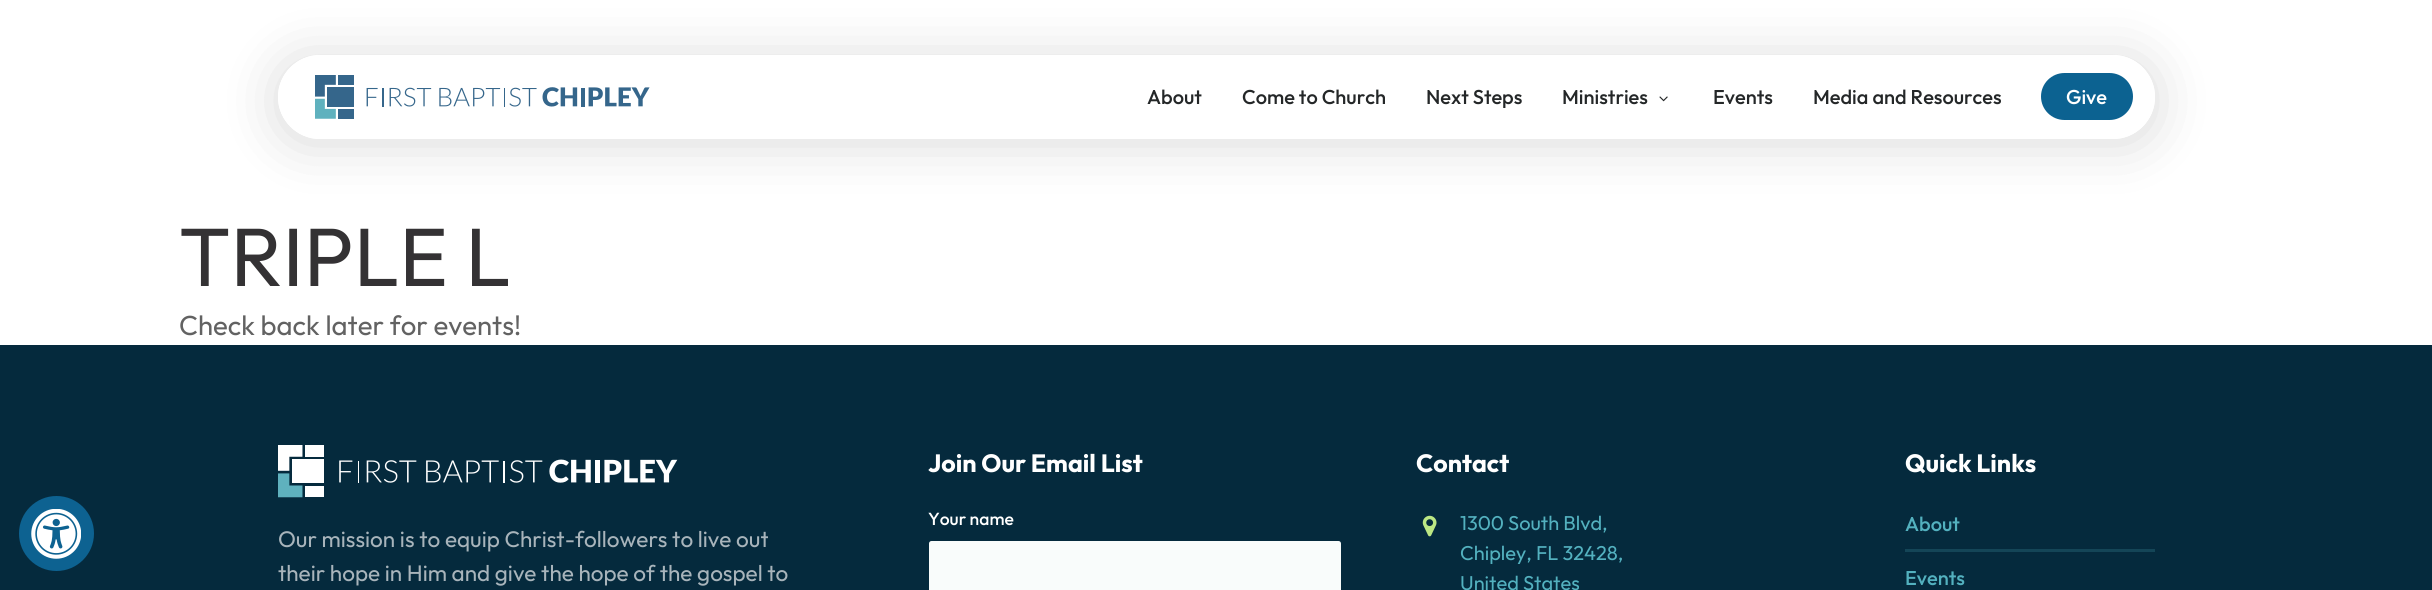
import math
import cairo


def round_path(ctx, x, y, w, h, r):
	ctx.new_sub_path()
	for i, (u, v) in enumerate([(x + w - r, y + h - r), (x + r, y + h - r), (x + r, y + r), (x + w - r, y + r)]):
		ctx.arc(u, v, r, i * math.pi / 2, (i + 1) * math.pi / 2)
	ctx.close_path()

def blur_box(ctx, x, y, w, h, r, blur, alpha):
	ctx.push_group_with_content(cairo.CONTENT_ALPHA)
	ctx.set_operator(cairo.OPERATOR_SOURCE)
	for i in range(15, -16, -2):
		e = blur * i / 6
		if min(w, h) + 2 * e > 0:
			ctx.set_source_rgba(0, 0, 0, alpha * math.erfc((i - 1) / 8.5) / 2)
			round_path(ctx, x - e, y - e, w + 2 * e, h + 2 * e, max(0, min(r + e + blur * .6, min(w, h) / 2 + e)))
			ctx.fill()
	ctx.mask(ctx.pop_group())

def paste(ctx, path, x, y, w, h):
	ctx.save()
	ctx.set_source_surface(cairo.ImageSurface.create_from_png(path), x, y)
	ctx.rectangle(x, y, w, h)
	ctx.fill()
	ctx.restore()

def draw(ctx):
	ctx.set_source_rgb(1, 1, 1)
	ctx.paint()
	ctx.save()
	ctx.set_fill_rule(cairo.FILL_RULE_EVEN_ODD)
	ctx.new_path()
	ctx.move_to(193, 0)
	ctx.line_to(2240, 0)
	ctx.line_to(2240, 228)
	ctx.line_to(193, 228)
	ctx.close_path()
	ctx.move_to(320, 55)
	ctx.line_to(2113, 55)
	ctx.curve_to(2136, 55, 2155, 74, 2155, 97)
	ctx.curve_to(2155, 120, 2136, 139, 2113, 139)
	ctx.line_to(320, 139)
	ctx.curve_to(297, 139, 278, 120, 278, 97)
	ctx.curve_to(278, 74, 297, 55, 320, 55)
	ctx.close_path()
	ctx.clip()
	ctx.set_source_rgb(0, 0, 0)
	blur_box(ctx, 278, 59, 1877, 84, 42, 28, 0.15)
	ctx.restore()
	ctx.set_source_rgba(1, 1, 1, 0.95)
	round_path(ctx, 278, 55, 1877, 84, 42)
	ctx.fill()
	paste(ctx, 'media/1.png', 315, 75, 335, 44)
	ctx.select_font_face('Outfit Medium')
	ctx.set_font_size(20)
	ctx.set_source_rgb(0.141, 0.153, 0.157)
	for x, y, s in [
		(1147, 104, 'About'),
		(1242, 104, 'Come to Church'),
		(1426, 104, 'Next Steps'),
		(1562, 104, 'Ministries'),
	]:
		ctx.move_to(x, y)
		ctx.show_text(s)
	paste(ctx, 'media/2.png', 1659, 96, 9, 6)
	ctx.move_to(1713, 104)
	ctx.show_text('Events')
	ctx.move_to(1813, 104)
	ctx.show_text('Media and Resources')
	ctx.set_source_rgb(0.047, 0.384, 0.569)
	round_path(ctx, 2041, 73, 92, 47, 23.5)
	ctx.fill()
	ctx.set_source_rgb(1, 1, 1)
	ctx.move_to(2066, 104)
	ctx.show_text('Give')
	ctx.set_source_rgb(0.02, 0.165, 0.239)
	ctx.rectangle(0, 345, 2432, 245)
	ctx.fill()
	ctx.set_source_rgb(0.051, 0.384, 0.569)
	ctx.arc(56.5, 533.5, 37.5, 0, 2 * math.pi)
	ctx.fill()
	paste(ctx, 'media/3.png', 31, 509, 50, 50)
	ctx.select_font_face('Outfit')
	ctx.set_font_size(82.5)
	ctx.set_source_rgb(0.204, 0.196, 0.204)
	ctx.move_to(179, 286)
	ctx.show_text('TRIPLE L')
	ctx.set_font_size(27.5)
	ctx.set_source_rgb(0.384, 0.384, 0.384)
	ctx.move_to(179, 335)
	ctx.show_text('Check back later for events!')
	paste(ctx, 'media/4.png', 278, 445, 400, 53)
	ctx.set_font_size(22.5)
	ctx.set_source_rgb(0.659, 0.706, 0.733)
	ctx.move_to(278, 547)
	ctx.show_text('Our mission is to equip Christ-followers to live out')
	ctx.move_to(278, 581)
	ctx.show_text('their hope in Him and give the hope of the gospel to')
	ctx.select_font_face('Outfit', cairo.FONT_SLANT_NORMAL, cairo.FONT_WEIGHT_BOLD)
	ctx.set_font_size(25)
	ctx.set_source_rgb(1, 1, 1)
	ctx.move_to(928, 472)
	ctx.show_text('Join Our Email List')
	ctx.select_font_face('Outfit Medium')
	ctx.set_font_size(17.5)
	ctx.move_to(928, 525)
	ctx.show_text('Your name')
	ctx.set_source_rgb(0.973, 0.988, 0.984)
	round_path(ctx, 929, 541, 412, 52, 2.5)
	ctx.fill()
	ctx.select_font_face('Outfit', cairo.FONT_SLANT_NORMAL, cairo.FONT_WEIGHT_BOLD)
	ctx.set_font_size(25)
	ctx.set_source_rgb(1, 1, 1)
	ctx.move_to(1416, 472)
	ctx.show_text('Contact')
	paste(ctx, 'media/5.png', 1422, 515, 15, 22)
	ctx.select_font_face('Outfit')
	ctx.set_font_size(20)
	ctx.set_source_rgb(0.325, 0.694, 0.749)
	for x, y, s in [
		(1460, 530, '1300 South Blvd,'),
		(1460, 560, 'Chipley, FL 32428,'),
		(1460, 590, 'United States'),
	]:
		ctx.move_to(x, y)
		ctx.show_text(s)
	ctx.select_font_face('Outfit', cairo.FONT_SLANT_NORMAL, cairo.FONT_WEIGHT_BOLD)
	ctx.set_font_size(25)
	ctx.set_source_rgb(1, 1, 1)
	ctx.move_to(1905, 472)
	ctx.show_text('Quick Links')
	ctx.set_source_rgb(0.082, 0.271, 0.341)
	ctx.rectangle(1905, 549, 250, 3)
	ctx.fill()
	ctx.select_font_face('Outfit Medium')
	ctx.set_font_size(20)
	ctx.set_source_rgb(0.325, 0.694, 0.749)
	ctx.move_to(1905, 531)
	ctx.show_text('About')
	ctx.move_to(1905, 585)
	ctx.show_text('Events')


surface = cairo.ImageSurface(cairo.FORMAT_RGB24, 2432, 590)
ctx = cairo.Context(surface)
options = cairo.FontOptions()
options.set_hint_metrics(cairo.HINT_METRICS_OFF)
options.set_hint_style(cairo.HINT_STYLE_NONE)
ctx.set_font_options(options)
ctx.set_miter_limit(4)
draw(ctx)
surface.write_to_png('image.png')
